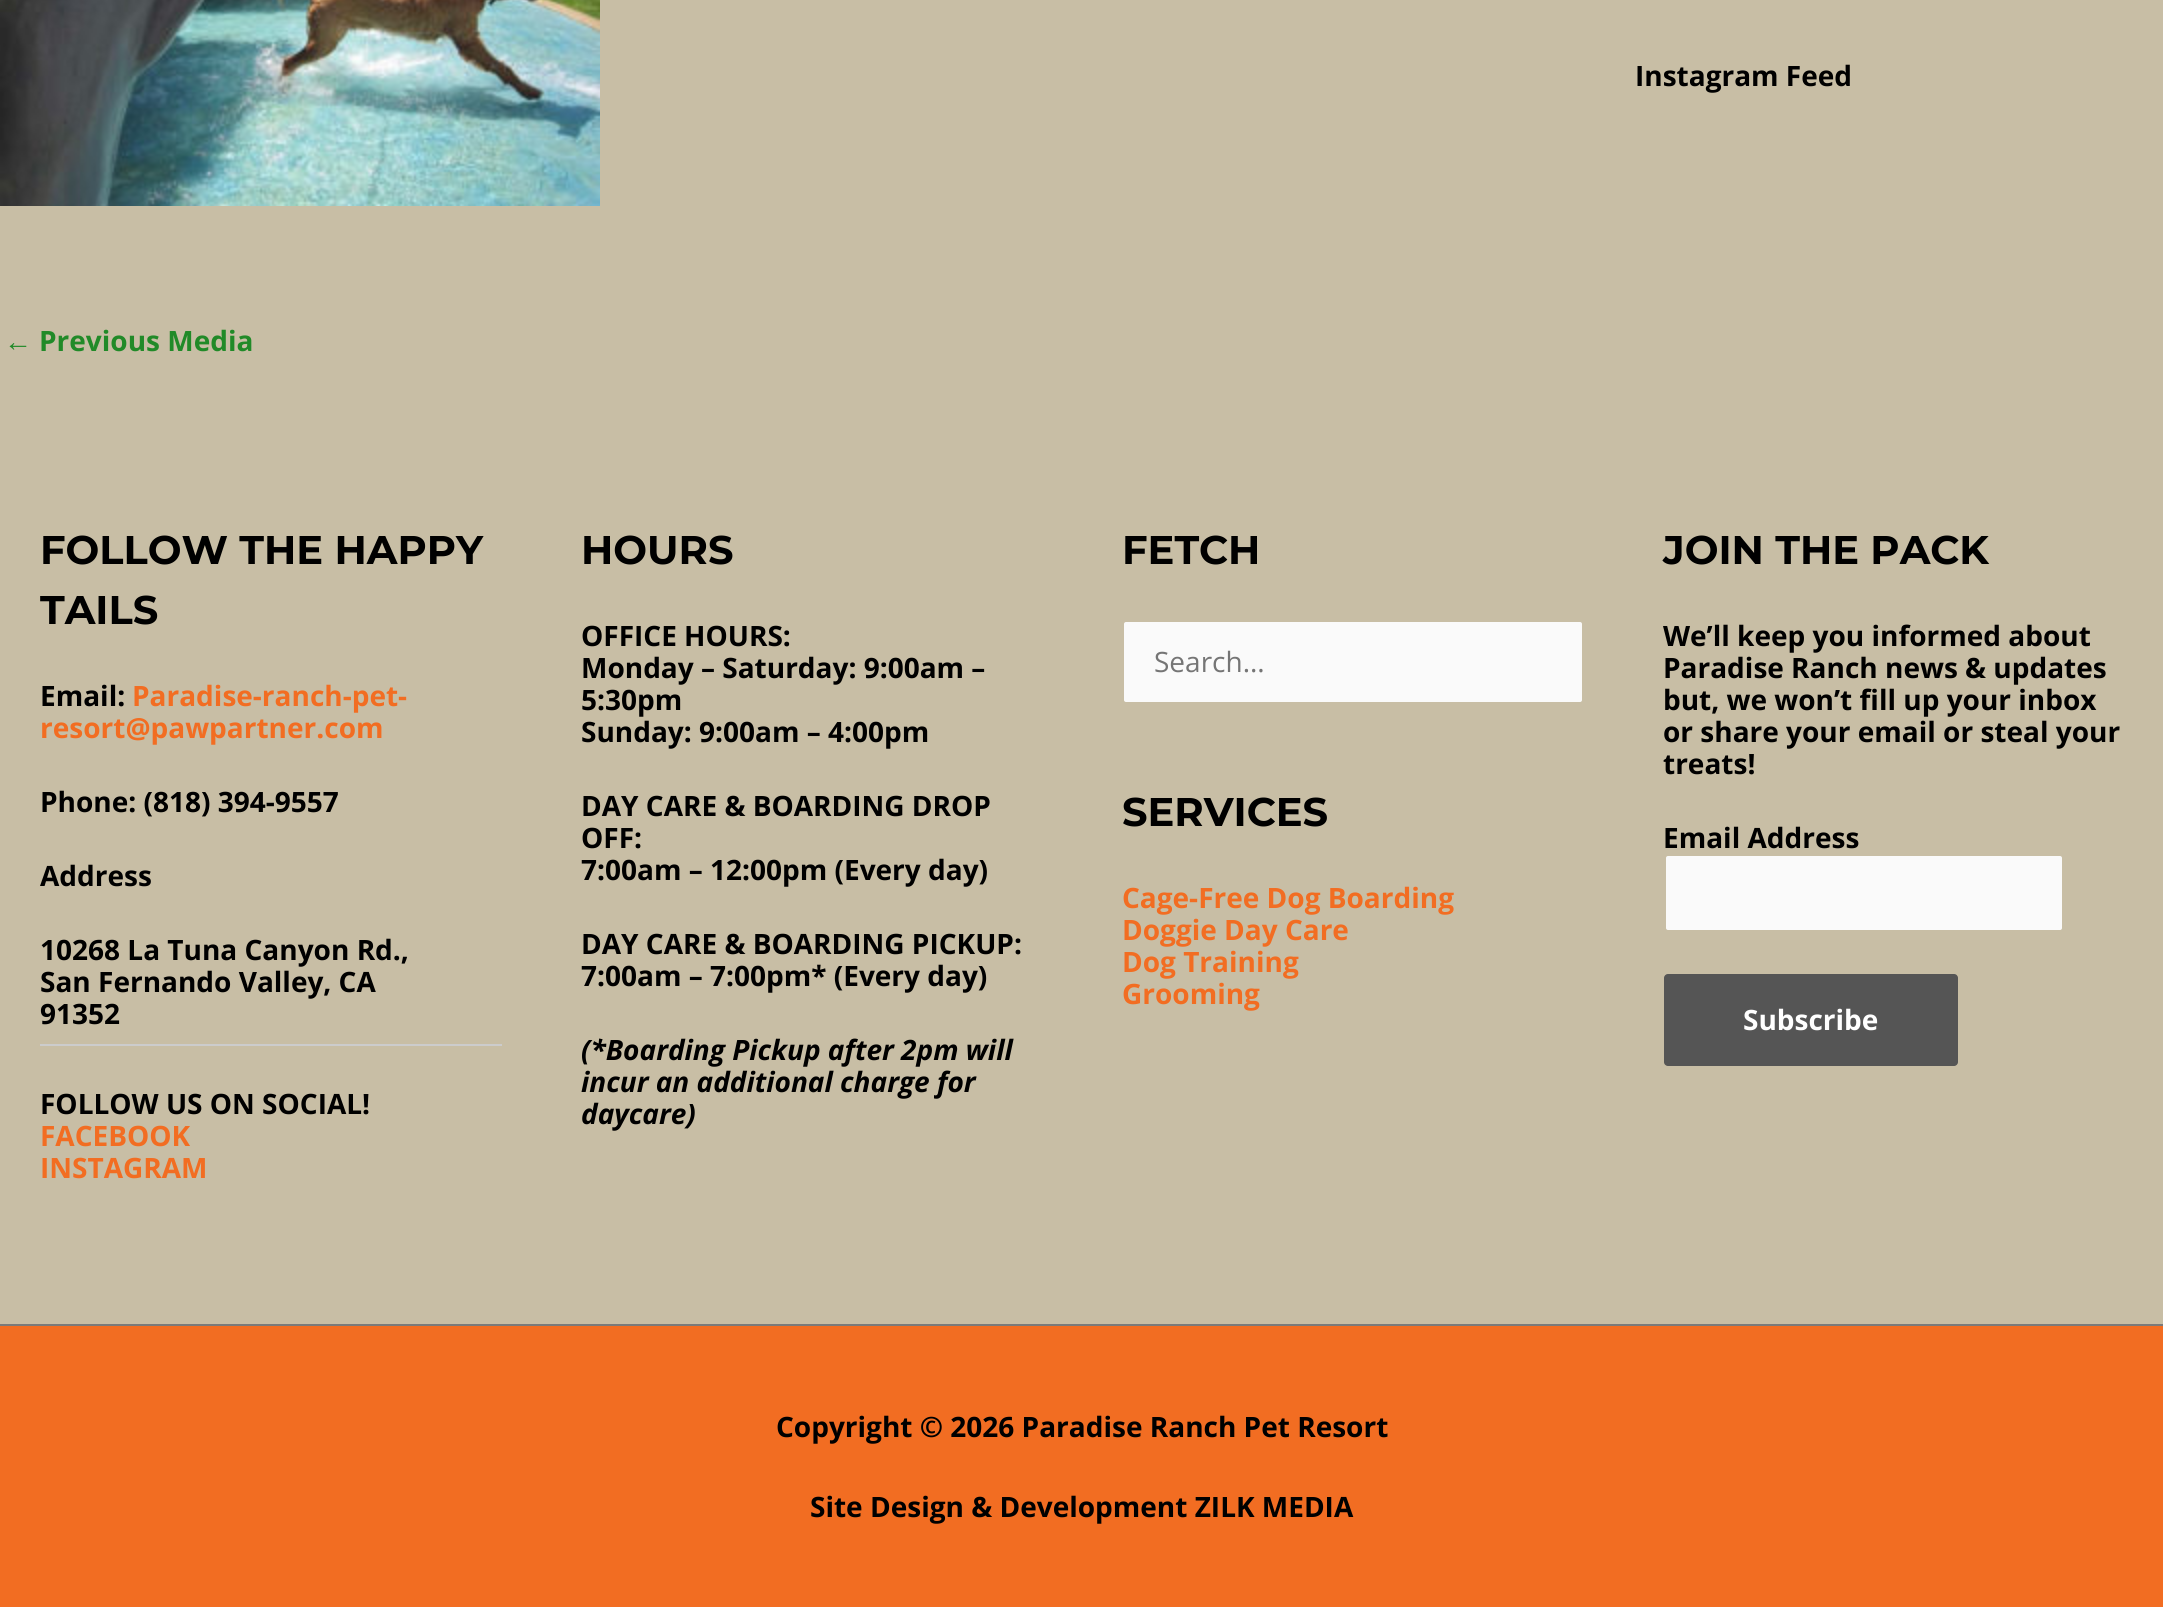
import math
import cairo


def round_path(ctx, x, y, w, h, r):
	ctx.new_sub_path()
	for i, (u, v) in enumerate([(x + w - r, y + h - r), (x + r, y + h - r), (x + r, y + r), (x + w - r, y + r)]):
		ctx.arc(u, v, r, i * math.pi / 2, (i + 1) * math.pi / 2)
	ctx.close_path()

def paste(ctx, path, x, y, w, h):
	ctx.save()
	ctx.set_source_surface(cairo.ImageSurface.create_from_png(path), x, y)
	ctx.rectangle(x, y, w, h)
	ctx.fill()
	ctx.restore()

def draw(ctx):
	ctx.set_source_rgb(0.784, 0.745, 0.647)
	ctx.paint()
	ctx.select_font_face('Open Sans', cairo.FONT_SLANT_NORMAL, cairo.FONT_WEIGHT_BOLD)
	ctx.set_font_size(28)
	ctx.set_source_rgb(0, 0, 0)
	ctx.move_to(1635, 86)
	ctx.show_text('Instagram Feed')
	paste(ctx, 'media/1.png', 0, 0, 600, 206)
	ctx.select_font_face('Liberation Sans', cairo.FONT_SLANT_NORMAL, cairo.FONT_WEIGHT_BOLD)
	ctx.set_source_rgb(0.129, 0.541, 0.157)
	ctx.move_to(4, 351)
	ctx.show_text('←')
	ctx.select_font_face('Open Sans', cairo.FONT_SLANT_NORMAL, cairo.FONT_WEIGHT_BOLD)
	ctx.move_to(39, 351)
	ctx.show_text('Previous Media')
	ctx.select_font_face('Montserrat', cairo.FONT_SLANT_NORMAL, cairo.FONT_WEIGHT_BOLD)
	ctx.set_font_size(40)
	ctx.set_source_rgb(0, 0, 0)
	ctx.move_to(40, 564)
	ctx.show_text('FOLLOW THE HAPPY')
	ctx.move_to(40, 624)
	ctx.show_text('TAILS')
	ctx.select_font_face('Open Sans', cairo.FONT_SLANT_NORMAL, cairo.FONT_WEIGHT_BOLD)
	ctx.set_font_size(28)
	ctx.move_to(40, 706)
	ctx.show_text('Email:')
	ctx.set_source_rgb(0.949, 0.427, 0.133)
	ctx.move_to(132, 706)
	ctx.show_text('Paradise-ranch-pet-')
	ctx.move_to(40, 738)
	ctx.show_text('resort@pawpartner.com')
	ctx.set_source_rgb(0, 0, 0)
	for x, y, s in [
		(40, 812, 'Phone: (818) 394-9557'),
		(40, 886, 'Address'),
		(40, 960, '10268 La Tuna Canyon Rd.,'),
		(40, 992, 'San Fernando Valley, CA'),
		(40, 1024, '91352'),
	]:
		ctx.move_to(x, y)
		ctx.show_text(s)
	ctx.set_source_rgb(0.8, 0.8, 0.8)
	ctx.rectangle(40, 1044, 462, 2)
	ctx.fill()
	ctx.set_source_rgb(0, 0, 0)
	ctx.move_to(40, 1114)
	ctx.show_text('FOLLOW US ON SOCIAL!')
	ctx.set_source_rgb(0.949, 0.427, 0.133)
	ctx.move_to(40, 1146)
	ctx.show_text('FACEBOOK')
	ctx.move_to(40, 1178)
	ctx.show_text('INSTAGRAM')
	ctx.select_font_face('Montserrat', cairo.FONT_SLANT_NORMAL, cairo.FONT_WEIGHT_BOLD)
	ctx.set_font_size(40)
	ctx.set_source_rgb(0, 0, 0)
	ctx.move_to(581, 564)
	ctx.show_text('HOURS')
	ctx.select_font_face('Open Sans', cairo.FONT_SLANT_NORMAL, cairo.FONT_WEIGHT_BOLD)
	ctx.set_font_size(28)
	for x, y, s in [
		(581, 646, 'OFFICE HOURS:'),
		(581, 678, 'Monday – Saturday: 9:00am –'),
		(581, 710, '5:30pm'),
		(581, 742, 'Sunday: 9:00am – 4:00pm'),
		(581, 816, 'DAY CARE & BOARDING DROP'),
		(581, 848, 'OFF:'),
		(581, 880, '7:00am – 12:00pm (Every day)'),
		(581, 954, 'DAY CARE & BOARDING PICKUP:'),
		(581, 986, '7:00am – 7:00pm* (Every day)'),
	]:
		ctx.move_to(x, y)
		ctx.show_text(s)
	ctx.select_font_face('Open Sans', cairo.FONT_SLANT_ITALIC, cairo.FONT_WEIGHT_BOLD)
	for x, y, s in [
		(581, 1060, '(*Boarding Pickup after 2pm will'),
		(581, 1092, 'incur an additional charge for'),
		(581, 1124, 'daycare)'),
	]:
		ctx.move_to(x, y)
		ctx.show_text(s)
	ctx.select_font_face('Montserrat', cairo.FONT_SLANT_NORMAL, cairo.FONT_WEIGHT_BOLD)
	ctx.set_font_size(40)
	ctx.move_to(1122, 564)
	ctx.show_text('FETCH')
	ctx.set_source_rgb(0.98, 0.98, 0.98)
	round_path(ctx, 1123, 621, 460, 82, 3)
	ctx.fill_preserve()
	ctx.set_source_rgb(0.784, 0.745, 0.647)
	ctx.stroke()
	ctx.select_font_face('Open Sans')
	ctx.set_font_size(28)
	ctx.set_source_rgb(0.459, 0.459, 0.459)
	ctx.move_to(1154, 672)
	ctx.show_text('Search...')
	ctx.select_font_face('Montserrat', cairo.FONT_SLANT_NORMAL, cairo.FONT_WEIGHT_BOLD)
	ctx.set_font_size(40)
	ctx.set_source_rgb(0, 0, 0)
	ctx.move_to(1122, 826)
	ctx.show_text('SERVICES')
	ctx.select_font_face('Open Sans', cairo.FONT_SLANT_NORMAL, cairo.FONT_WEIGHT_BOLD)
	ctx.set_font_size(28)
	ctx.set_source_rgb(0.949, 0.427, 0.133)
	for x, y, s in [
		(1122, 908, 'Cage-Free Dog Boarding'),
		(1122, 940, 'Doggie Day Care'),
		(1122, 972, 'Dog Training'),
		(1122, 1004, 'Grooming'),
	]:
		ctx.move_to(x, y)
		ctx.show_text(s)
	ctx.select_font_face('Montserrat', cairo.FONT_SLANT_NORMAL, cairo.FONT_WEIGHT_BOLD)
	ctx.set_font_size(40)
	ctx.set_source_rgb(0, 0, 0)
	ctx.move_to(1663, 564)
	ctx.show_text('JOIN THE PACK')
	ctx.select_font_face('Open Sans', cairo.FONT_SLANT_NORMAL, cairo.FONT_WEIGHT_BOLD)
	ctx.set_font_size(28)
	for x, y, s in [
		(1663, 646, 'We’ll keep you informed about'),
		(1663, 678, 'Paradise Ranch news & updates'),
		(1663, 710, 'but, we won’t fill up your inbox'),
		(1663, 742, 'or share your email or steal your'),
		(1663, 774, 'treats!'),
		(1663, 848, 'Email Address'),
	]:
		ctx.move_to(x, y)
		ctx.show_text(s)
	ctx.set_source_rgb(0.98, 0.98, 0.98)
	round_path(ctx, 1665, 855, 398, 76, 3)
	ctx.fill_preserve()
	ctx.set_source_rgb(0.784, 0.745, 0.647)
	ctx.stroke()
	ctx.set_source_rgb(0.333, 0.333, 0.333)
	round_path(ctx, 1664, 974, 294, 92, 4)
	ctx.fill()
	ctx.set_source_rgb(1, 1, 1)
	ctx.move_to(1743, 1030)
	ctx.show_text('Subscribe')
	ctx.set_source_rgb(0.478, 0.478, 0.478)
	ctx.rectangle(0, 1324, 2163, 2)
	ctx.fill()
	ctx.set_source_rgb(0.949, 0.427, 0.133)
	ctx.rectangle(0, 1326, 2163, 281)
	ctx.fill()
	ctx.set_source_rgb(0, 0, 0)
	ctx.move_to(776, 1437)
	ctx.show_text('Copyright © 2026 Paradise Ranch Pet Resort')
	ctx.move_to(810, 1517)
	ctx.show_text('Site Design & Development ZILK MEDIA')


surface = cairo.ImageSurface(cairo.FORMAT_RGB24, 2163, 1607)
ctx = cairo.Context(surface)
options = cairo.FontOptions()
options.set_hint_metrics(cairo.HINT_METRICS_OFF)
options.set_hint_style(cairo.HINT_STYLE_NONE)
ctx.set_font_options(options)
ctx.set_miter_limit(4)
draw(ctx)
surface.write_to_png('image.png')
